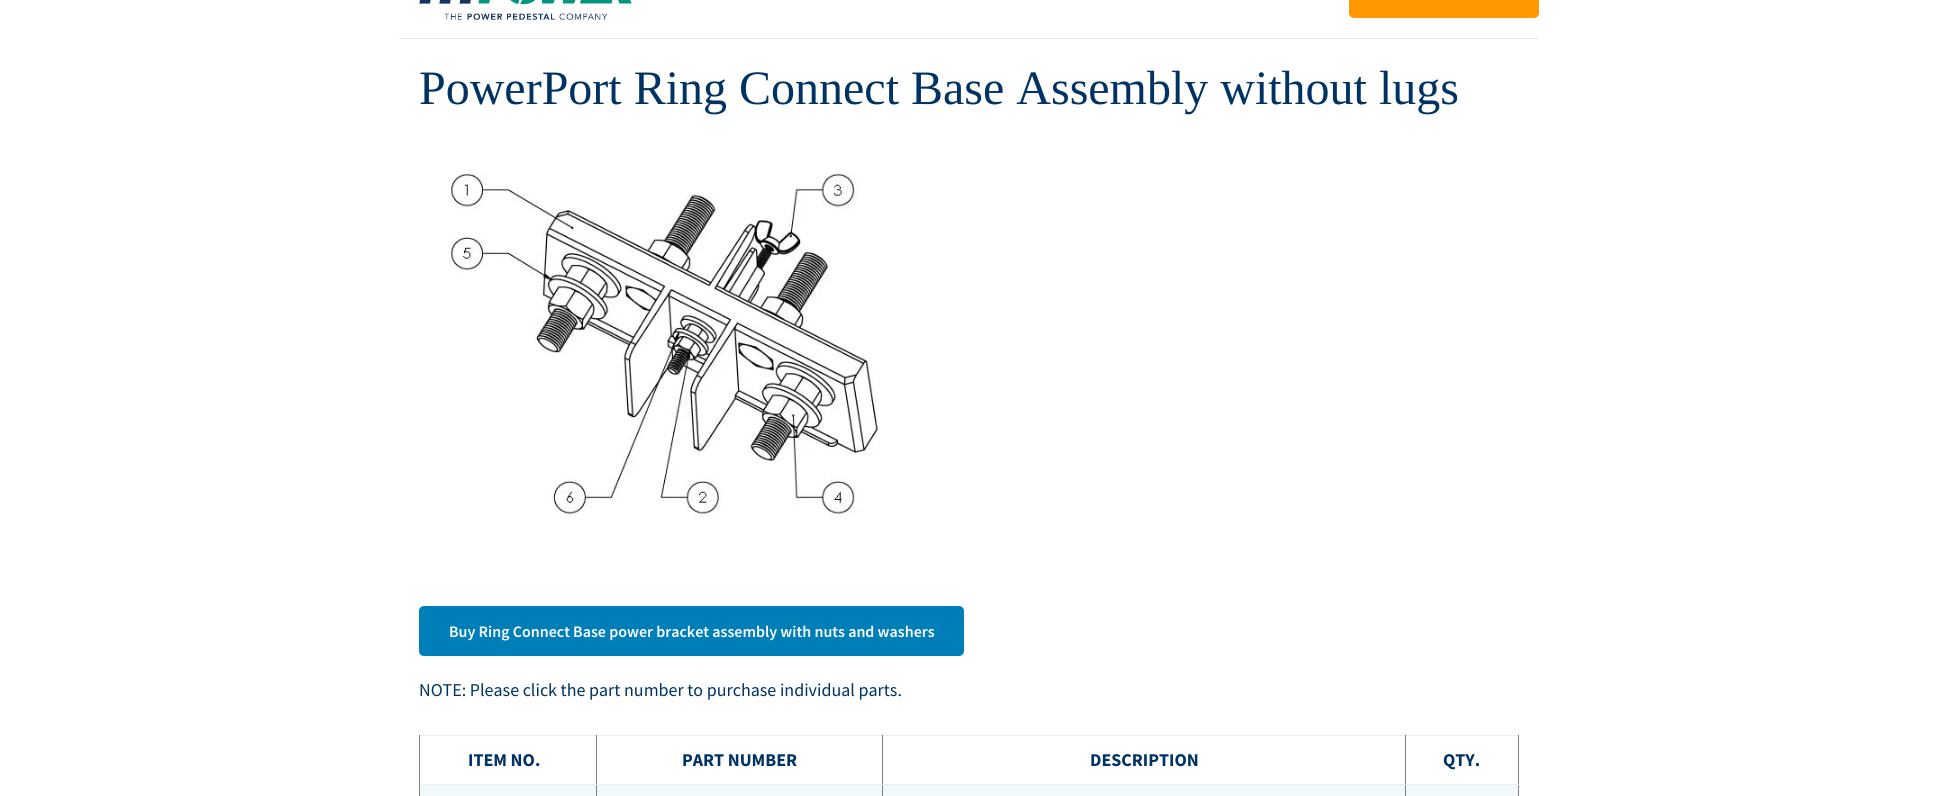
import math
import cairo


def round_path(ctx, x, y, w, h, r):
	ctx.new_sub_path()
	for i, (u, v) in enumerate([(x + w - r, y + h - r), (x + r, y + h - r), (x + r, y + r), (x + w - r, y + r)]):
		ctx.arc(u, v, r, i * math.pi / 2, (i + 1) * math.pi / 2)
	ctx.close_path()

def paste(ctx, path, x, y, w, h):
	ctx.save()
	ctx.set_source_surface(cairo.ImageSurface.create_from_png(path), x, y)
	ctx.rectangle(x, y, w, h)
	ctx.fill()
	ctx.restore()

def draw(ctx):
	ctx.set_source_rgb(1, 1, 1)
	ctx.paint()
	ctx.set_source_rgb(0.91, 0.91, 0.91)
	ctx.rectangle(399, 38, 1140, 1)
	ctx.fill()
	paste(ctx, 'media/1.png', 419, 0, 213, 20)
	ctx.set_source_rgb(1, 0.6, 0)
	round_path(ctx, 1349, -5, 190, 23, 5)
	ctx.fill()
	ctx.select_font_face('Liberation Serif')
	ctx.set_font_size(48)
	ctx.set_source_rgb(0, 0.196, 0.388)
	ctx.move_to(419, 104)
	ctx.show_text('PowerPort Ring Connect Base Assembly without lugs')
	paste(ctx, 'media/2.png', 448, 173, 432, 345)
	ctx.set_source_rgb(0, 0.494, 0.718)
	round_path(ctx, 419, 606, 545, 50, 5)
	ctx.fill()
	ctx.select_font_face('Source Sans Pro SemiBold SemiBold')
	ctx.set_font_size(16)
	ctx.set_source_rgb(1, 1, 1)
	ctx.move_to(449, 637)
	ctx.show_text('Buy Ring Connect Base power bracket assembly with nuts and washers')
	ctx.select_font_face('Source Sans Pro')
	ctx.set_font_size(18)
	ctx.set_source_rgb(0, 0.196, 0.388)
	ctx.move_to(419, 696)
	ctx.show_text('NOTE: Please click the part number to purchase individual parts.')
	ctx.set_source_rgb(0.933, 0.933, 0.933)
	ctx.rectangle(419, 735, 1100, 1)
	ctx.fill()
	ctx.set_source_rgb(0.502, 0.502, 0.502)
	ctx.rectangle(1518, 784, 1, 12)
	ctx.rectangle(1518, 735, 1, 50)
	ctx.fill()
	ctx.set_source_rgb(0.949, 0.976, 0.992)
	ctx.rectangle(420, 785, 1098, 11)
	ctx.fill()
	ctx.set_source_rgb(0.502, 0.502, 0.502)
	ctx.rectangle(1405, 784, 1, 12)
	ctx.fill()
	ctx.set_source_rgb(0.933, 0.933, 0.933)
	ctx.rectangle(1405, 784, 114, 1)
	ctx.fill()
	ctx.set_source_rgb(0.502, 0.502, 0.502)
	ctx.rectangle(1405, 735, 1, 50)
	ctx.rectangle(882, 784, 1, 12)
	ctx.fill()
	ctx.set_source_rgb(0.933, 0.933, 0.933)
	ctx.rectangle(882, 784, 524, 1)
	ctx.fill()
	ctx.set_source_rgb(0.502, 0.502, 0.502)
	ctx.rectangle(882, 735, 1, 50)
	ctx.rectangle(596, 784, 1, 12)
	ctx.fill()
	ctx.set_source_rgb(0.933, 0.933, 0.933)
	ctx.rectangle(596, 784, 287, 1)
	ctx.fill()
	ctx.set_source_rgb(0.502, 0.502, 0.502)
	ctx.rectangle(596, 735, 1, 50)
	ctx.rectangle(419, 784, 1, 12)
	ctx.fill()
	ctx.set_source_rgb(0.933, 0.933, 0.933)
	ctx.rectangle(419, 784, 178, 1)
	ctx.fill()
	ctx.set_source_rgb(0.502, 0.502, 0.502)
	ctx.rectangle(419, 735, 1, 50)
	ctx.fill()
	ctx.select_font_face('Source Sans Pro', cairo.FONT_SLANT_NORMAL, cairo.FONT_WEIGHT_BOLD)
	ctx.set_source_rgb(0, 0.196, 0.388)
	for x, y, s in [
		(468, 766, 'ITEM NO.'),
		(682, 766, 'PART NUMBER'),
		(1090, 766, 'DESCRIPTION'),
		(1443, 766, 'QTY.'),
	]:
		ctx.move_to(x, y)
		ctx.show_text(s)


surface = cairo.ImageSurface(cairo.FORMAT_RGB24, 1937, 796)
ctx = cairo.Context(surface)
options = cairo.FontOptions()
options.set_hint_metrics(cairo.HINT_METRICS_OFF)
options.set_hint_style(cairo.HINT_STYLE_NONE)
ctx.set_font_options(options)
ctx.set_miter_limit(4)
draw(ctx)
surface.write_to_png('image.png')
